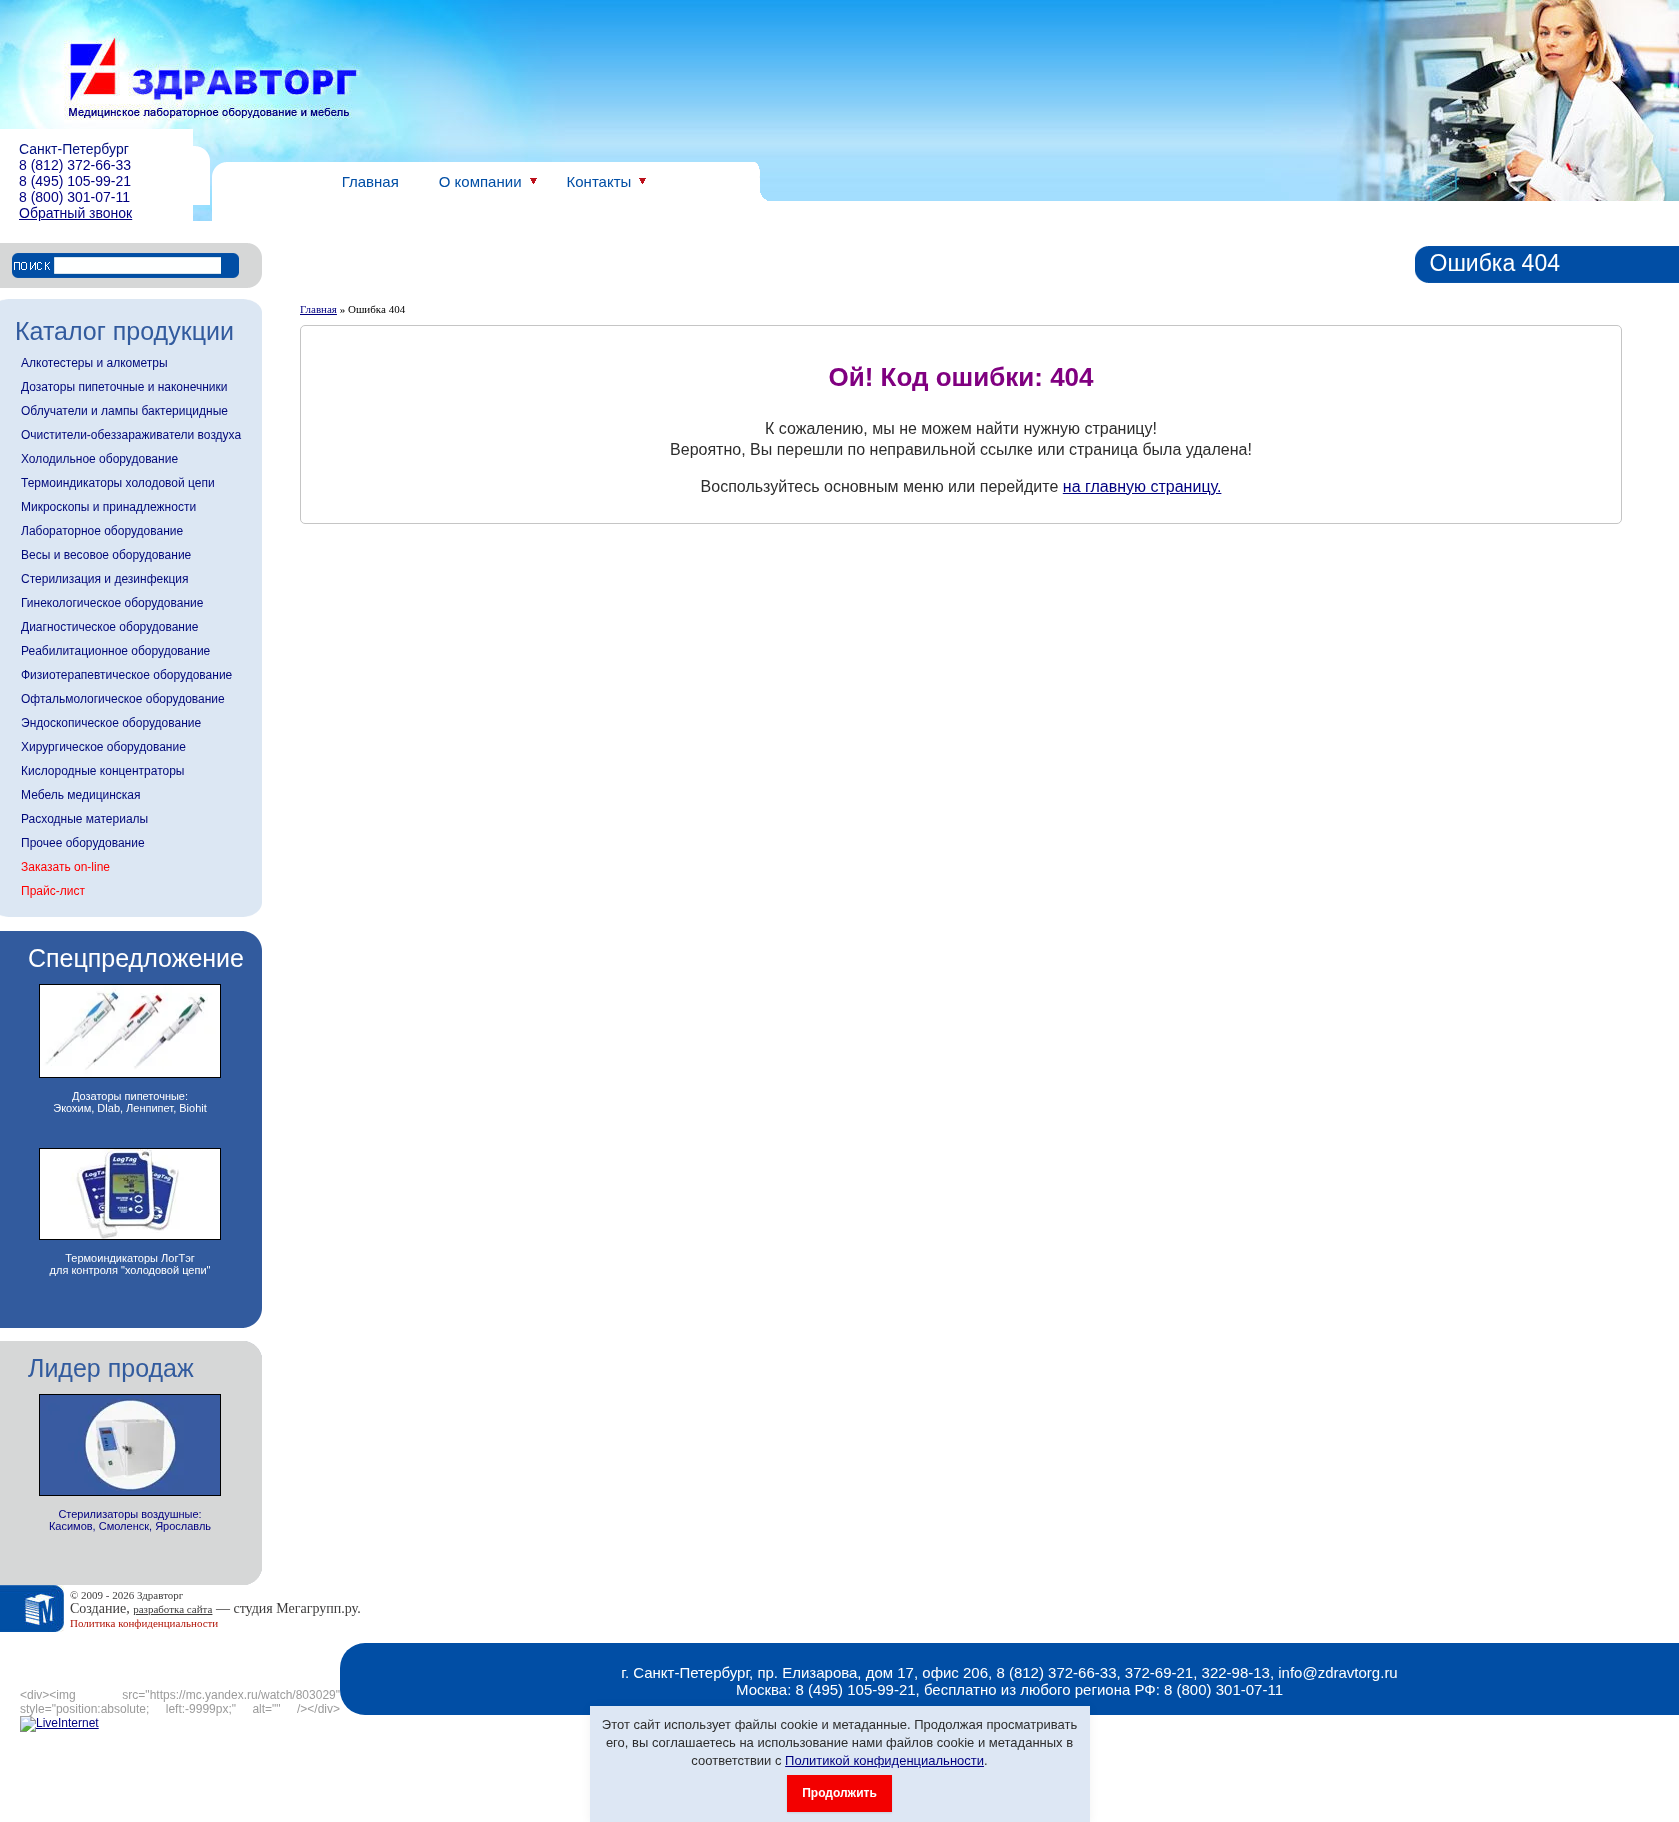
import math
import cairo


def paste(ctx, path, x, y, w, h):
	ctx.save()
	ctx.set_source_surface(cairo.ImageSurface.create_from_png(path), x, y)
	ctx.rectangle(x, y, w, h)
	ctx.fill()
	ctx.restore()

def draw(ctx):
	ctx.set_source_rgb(1, 1, 1)
	ctx.paint()
	paste(ctx, 'media/1.png', 0, 0, 1679, 1822)


surface = cairo.ImageSurface(cairo.FORMAT_RGB24, 1679, 1822)
ctx = cairo.Context(surface)
options = cairo.FontOptions()
options.set_hint_metrics(cairo.HINT_METRICS_OFF)
options.set_hint_style(cairo.HINT_STYLE_NONE)
ctx.set_font_options(options)
ctx.set_miter_limit(4)
draw(ctx)
surface.write_to_png('image.png')
